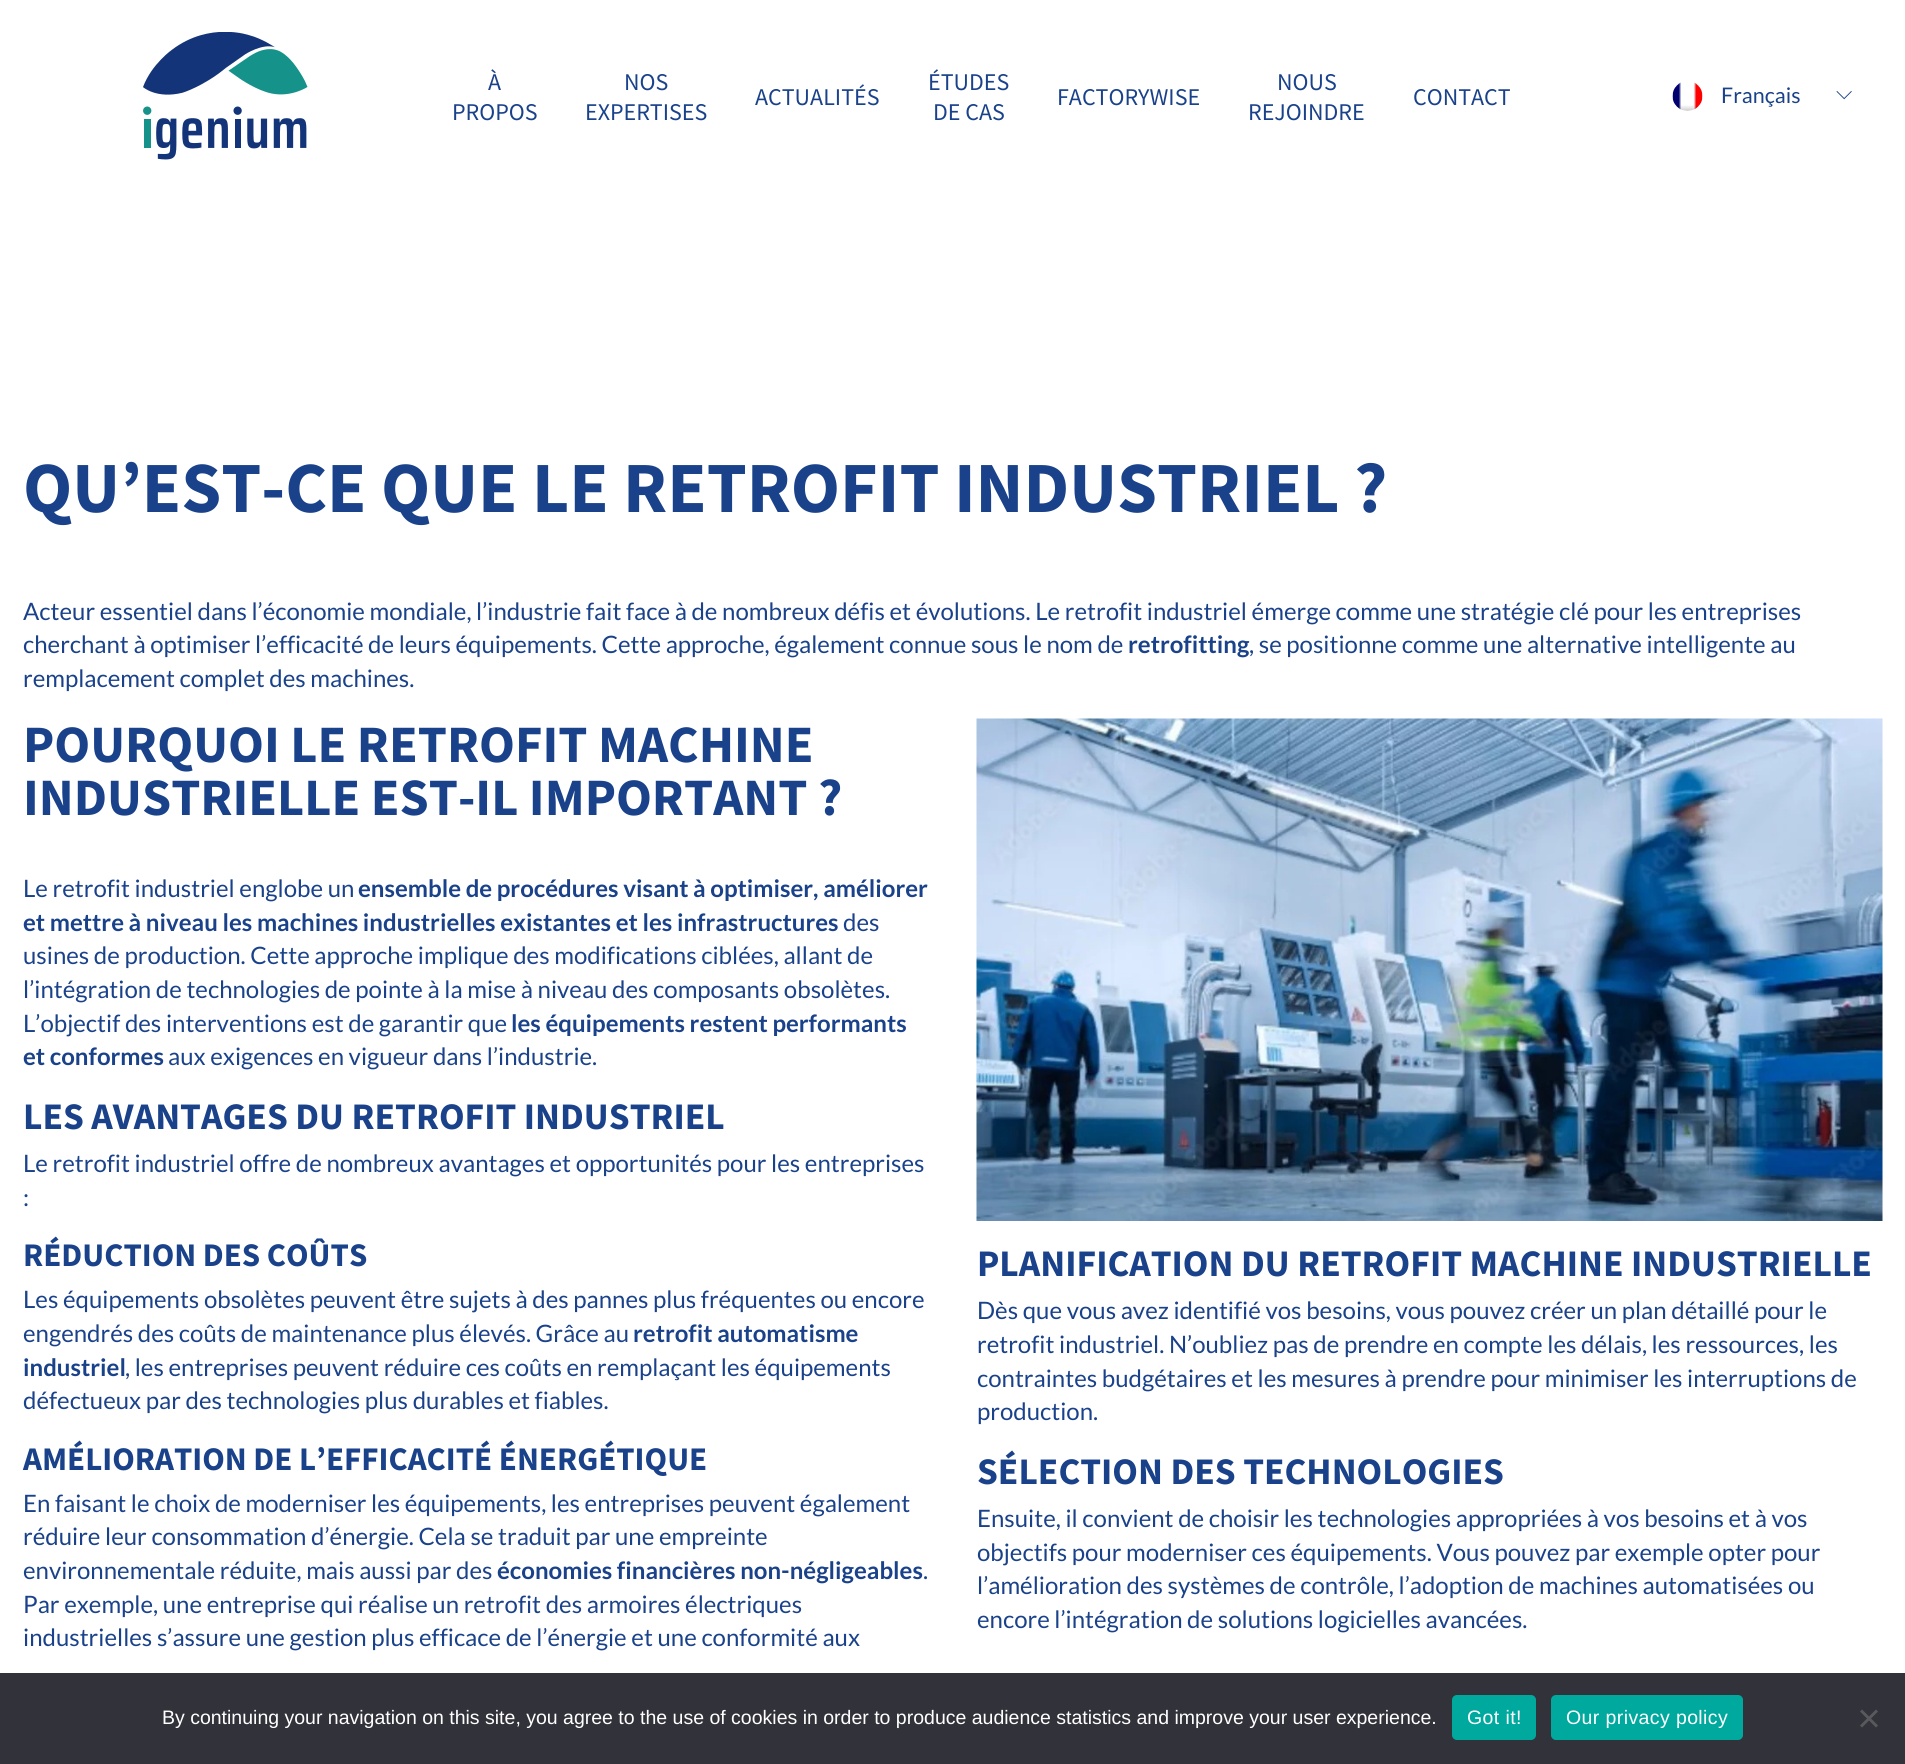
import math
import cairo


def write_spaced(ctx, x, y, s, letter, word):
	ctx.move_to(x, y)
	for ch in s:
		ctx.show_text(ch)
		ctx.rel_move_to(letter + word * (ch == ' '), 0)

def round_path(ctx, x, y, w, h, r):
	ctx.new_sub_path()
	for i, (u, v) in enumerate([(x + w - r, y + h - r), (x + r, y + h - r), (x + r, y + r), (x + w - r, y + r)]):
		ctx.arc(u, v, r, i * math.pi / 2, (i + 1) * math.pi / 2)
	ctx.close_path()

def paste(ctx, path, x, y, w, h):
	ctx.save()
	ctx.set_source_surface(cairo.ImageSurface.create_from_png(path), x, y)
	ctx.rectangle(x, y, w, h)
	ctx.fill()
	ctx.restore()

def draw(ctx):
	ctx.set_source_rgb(1, 1, 1)
	ctx.paint()
	paste(ctx, 'media/1.png', 143, 32, 165, 128)
	ctx.select_font_face('Source Sans Pro')
	ctx.set_font_size(24)
	ctx.set_source_rgb(0.102, 0.259, 0.541)
	for x, y, s in [
		(488, 90, 'À'),
		(452, 120, 'PROPOS'),
		(624, 90, 'NOS'),
		(585, 120, 'EXPERTISES'),
		(755, 105, 'ACTUALITÉS'),
		(928, 90, 'ÉTUDES'),
		(933, 120, 'DE CAS'),
		(1057, 105, 'FACTORYWISE'),
		(1277, 90, 'NOUS'),
		(1248, 120, 'REJOINDRE'),
		(1413, 105, 'CONTACT'),
	]:
		ctx.move_to(x, y)
		ctx.show_text(s)
	paste(ctx, 'media/2.png', 1672, 82, 31, 29)
	ctx.select_font_face('Lato')
	ctx.set_font_size(21.5)
	ctx.move_to(1721, 103)
	ctx.show_text('Français')
	ctx.select_font_face('FreeSerif')
	ctx.move_to(1836, 99)
	ctx.show_text('⌵')
	ctx.select_font_face('Source Sans Pro', cairo.FONT_SLANT_NORMAL, cairo.FONT_WEIGHT_BOLD)
	ctx.set_font_size(72)
	ctx.move_to(23, 512)
	ctx.show_text('QU’EST-CE QUE LE RETROFIT INDUSTRIEL ?')
	ctx.select_font_face('Lato')
	ctx.set_font_size(24)
	ctx.move_to(23, 620)
	ctx.show_text('Acteur essentiel dans l’économie mondiale, l’industrie fait face à de nombreux défis et évolutions. Le retrofit industriel émerge comme une stratégie clé pour les entreprises')
	ctx.move_to(23, 653)
	ctx.show_text('cherchant à optimiser l’efficacité de leurs équipements. Cette approche, également connue sous le nom de')
	ctx.select_font_face('Lato', cairo.FONT_SLANT_NORMAL, cairo.FONT_WEIGHT_BOLD)
	ctx.move_to(1128, 653)
	ctx.show_text('retrofitting')
	ctx.select_font_face('Lato')
	ctx.move_to(1249, 653)
	ctx.show_text(', se positionne comme une alternative intelligente au')
	ctx.move_to(23, 687)
	ctx.show_text('remplacement complet des machines.')
	ctx.select_font_face('Source Sans Pro', cairo.FONT_SLANT_NORMAL, cairo.FONT_WEIGHT_BOLD)
	ctx.set_font_size(52.5)
	ctx.move_to(23, 762)
	ctx.show_text('POURQUOI LE RETROFIT MACHINE')
	ctx.move_to(23, 815)
	ctx.show_text('INDUSTRIELLE EST-IL IMPORTANT ?')
	ctx.select_font_face('Lato')
	ctx.set_font_size(24)
	ctx.move_to(23, 897)
	ctx.show_text('Le retrofit industriel englobe un')
	ctx.select_font_face('Lato', cairo.FONT_SLANT_NORMAL, cairo.FONT_WEIGHT_BOLD)
	ctx.move_to(358, 897)
	ctx.show_text('ensemble de procédures visant à optimiser, améliorer')
	ctx.move_to(23, 931)
	ctx.show_text('et mettre à niveau les machines industrielles existantes et les infrastructures')
	ctx.select_font_face('Lato')
	for x, y, s in [
		(843, 931, 'des'),
		(23, 964, 'usines de production. Cette approche implique des modifications ciblées, allant de'),
		(23, 998, 'l’intégration de technologies de pointe à la mise à niveau des composants obsolètes.'),
		(23, 1032, 'L’objectif des interventions est de garantir que'),
	]:
		ctx.move_to(x, y)
		ctx.show_text(s)
	ctx.select_font_face('Lato', cairo.FONT_SLANT_NORMAL, cairo.FONT_WEIGHT_BOLD)
	ctx.move_to(511, 1032)
	ctx.show_text('les équipements restent performants')
	ctx.move_to(23, 1065)
	ctx.show_text('et conformes')
	ctx.select_font_face('Lato')
	ctx.move_to(168, 1065)
	ctx.show_text('aux exigences en vigueur dans l’industrie.')
	ctx.select_font_face('Source Sans Pro', cairo.FONT_SLANT_NORMAL, cairo.FONT_WEIGHT_BOLD)
	ctx.set_font_size(37.5)
	ctx.move_to(23, 1129)
	ctx.show_text('LES AVANTAGES DU RETROFIT INDUSTRIEL')
	ctx.select_font_face('Lato')
	ctx.set_font_size(24)
	ctx.move_to(23, 1172)
	ctx.show_text('Le retrofit industriel offre de nombreux avantages et opportunités pour les entreprises')
	ctx.move_to(23, 1206)
	ctx.show_text(':')
	ctx.select_font_face('Source Sans Pro', cairo.FONT_SLANT_NORMAL, cairo.FONT_WEIGHT_BOLD)
	ctx.set_font_size(33)
	ctx.move_to(23, 1266)
	ctx.show_text('RÉDUCTION DES COÛTS')
	ctx.select_font_face('Lato')
	ctx.set_font_size(24)
	ctx.move_to(23, 1308)
	ctx.show_text('Les équipements obsolètes peuvent être sujets à des pannes plus fréquentes ou encore')
	ctx.move_to(23, 1342)
	ctx.show_text('engendrés des coûts de maintenance plus élevés. Grâce au')
	ctx.select_font_face('Lato', cairo.FONT_SLANT_NORMAL, cairo.FONT_WEIGHT_BOLD)
	ctx.move_to(633, 1342)
	ctx.show_text('retrofit automatisme')
	ctx.move_to(23, 1376)
	ctx.show_text('industriel')
	ctx.select_font_face('Lato')
	ctx.move_to(125, 1376)
	ctx.show_text(', les entreprises peuvent réduire ces coûts en remplaçant les équipements')
	ctx.move_to(23, 1409)
	ctx.show_text('défectueux par des technologies plus durables et fiables.')
	ctx.select_font_face('Source Sans Pro', cairo.FONT_SLANT_NORMAL, cairo.FONT_WEIGHT_BOLD)
	ctx.set_font_size(33)
	ctx.move_to(23, 1470)
	ctx.show_text('AMÉLIORATION DE L’EFFICACITÉ ÉNERGÉTIQUE')
	ctx.select_font_face('Lato')
	ctx.set_font_size(24)
	for x, y, s in [
		(23, 1512, 'En faisant le choix de moderniser les équipements, les entreprises peuvent également'),
		(23, 1545, 'réduire leur consommation d’énergie. Cela se traduit par une empreinte'),
		(23, 1579, 'environnementale réduite, mais aussi par des'),
	]:
		ctx.move_to(x, y)
		ctx.show_text(s)
	ctx.select_font_face('Lato', cairo.FONT_SLANT_NORMAL, cairo.FONT_WEIGHT_BOLD)
	ctx.move_to(497, 1579)
	ctx.show_text('économies financières non-négligeables')
	ctx.select_font_face('Lato')
	for x, y, s in [
		(923, 1579, '.'),
		(23, 1613, 'Par exemple, une entreprise qui réalise un retrofit des armoires électriques'),
		(23, 1646, 'industrielles s’assure une gestion plus efficace de l’énergie et une conformité aux'),
	]:
		ctx.move_to(x, y)
		ctx.show_text(s)
	paste(ctx, 'media/3.png', 976, 718, 907, 503)
	ctx.select_font_face('Source Sans Pro', cairo.FONT_SLANT_NORMAL, cairo.FONT_WEIGHT_BOLD)
	ctx.set_font_size(37.5)
	ctx.move_to(977, 1276)
	ctx.show_text('PLANIFICATION DU RETROFIT MACHINE INDUSTRIELLE')
	ctx.select_font_face('Lato')
	ctx.set_font_size(24)
	for x, y, s in [
		(977, 1319, 'Dès que vous avez identifié vos besoins, vous pouvez créer un plan détaillé pour le'),
		(977, 1353, 'retrofit industriel. N’oubliez pas de prendre en compte les délais, les ressources, les'),
		(977, 1387, 'contraintes budgétaires et les mesures à prendre pour minimiser les interruptions de'),
		(977, 1420, 'production.'),
	]:
		ctx.move_to(x, y)
		ctx.show_text(s)
	ctx.select_font_face('Source Sans Pro', cairo.FONT_SLANT_NORMAL, cairo.FONT_WEIGHT_BOLD)
	ctx.set_font_size(37.5)
	ctx.move_to(977, 1484)
	ctx.show_text('SÉLECTION DES TECHNOLOGIES')
	ctx.select_font_face('Lato')
	ctx.set_font_size(24)
	for x, y, s in [
		(977, 1527, 'Ensuite, il convient de choisir les technologies appropriées à vos besoins et à vos'),
		(977, 1561, 'objectifs pour moderniser ces équipements. Vous pouvez par exemple opter pour'),
		(977, 1594, 'l’amélioration des systèmes de contrôle, l’adoption de machines automatisées ou'),
		(977, 1628, 'encore l’intégration de solutions logicielles avancées.'),
	]:
		ctx.move_to(x, y)
		ctx.show_text(s)
	ctx.set_source_rgb(0.196, 0.196, 0.227)
	ctx.rectangle(0, 1673, 1905, 91)
	ctx.fill()
	ctx.select_font_face('Liberation Sans')
	ctx.set_font_size(19.5)
	ctx.set_source_rgb(1, 1, 1)
	ctx.move_to(162, 1724)
	ctx.show_text('By continuing your navigation on this site, you agree to the use of cookies in order to produce audience statistics and improve your user experience.')
	ctx.set_source_rgb(0, 0.663, 0.616)
	round_path(ctx, 1452, 1695, 84, 45, 5)
	ctx.fill()
	ctx.set_source_rgb(1, 1, 1)
	write_spaced(ctx, 1467, 1724, 'Got it!', 0.4, 0)
	ctx.set_source_rgb(0, 0.663, 0.616)
	round_path(ctx, 1551, 1695, 192, 45, 5)
	ctx.fill()
	ctx.set_source_rgb(1, 1, 1)
	write_spaced(ctx, 1566, 1724, 'Our privacy policy', 0.4, 0)
	ctx.set_source_rgb(0.349, 0.349, 0.365)
	ctx.new_path()
	ctx.move_to(1876, 1709.5)
	ctx.line_to(1878, 1711.5)
	ctx.line_to(1862, 1727.5)
	ctx.line_to(1860, 1725.5)
	ctx.close_path()
	ctx.fill()
	ctx.new_path()
	ctx.move_to(1860, 1711.5)
	ctx.line_to(1862, 1709.5)
	ctx.line_to(1878, 1725.5)
	ctx.line_to(1876, 1727.5)
	ctx.close_path()
	ctx.fill()


surface = cairo.ImageSurface(cairo.FORMAT_RGB24, 1905, 1764)
ctx = cairo.Context(surface)
options = cairo.FontOptions()
options.set_hint_metrics(cairo.HINT_METRICS_OFF)
options.set_hint_style(cairo.HINT_STYLE_NONE)
ctx.set_font_options(options)
ctx.set_miter_limit(4)
draw(ctx)
surface.write_to_png('image.png')
